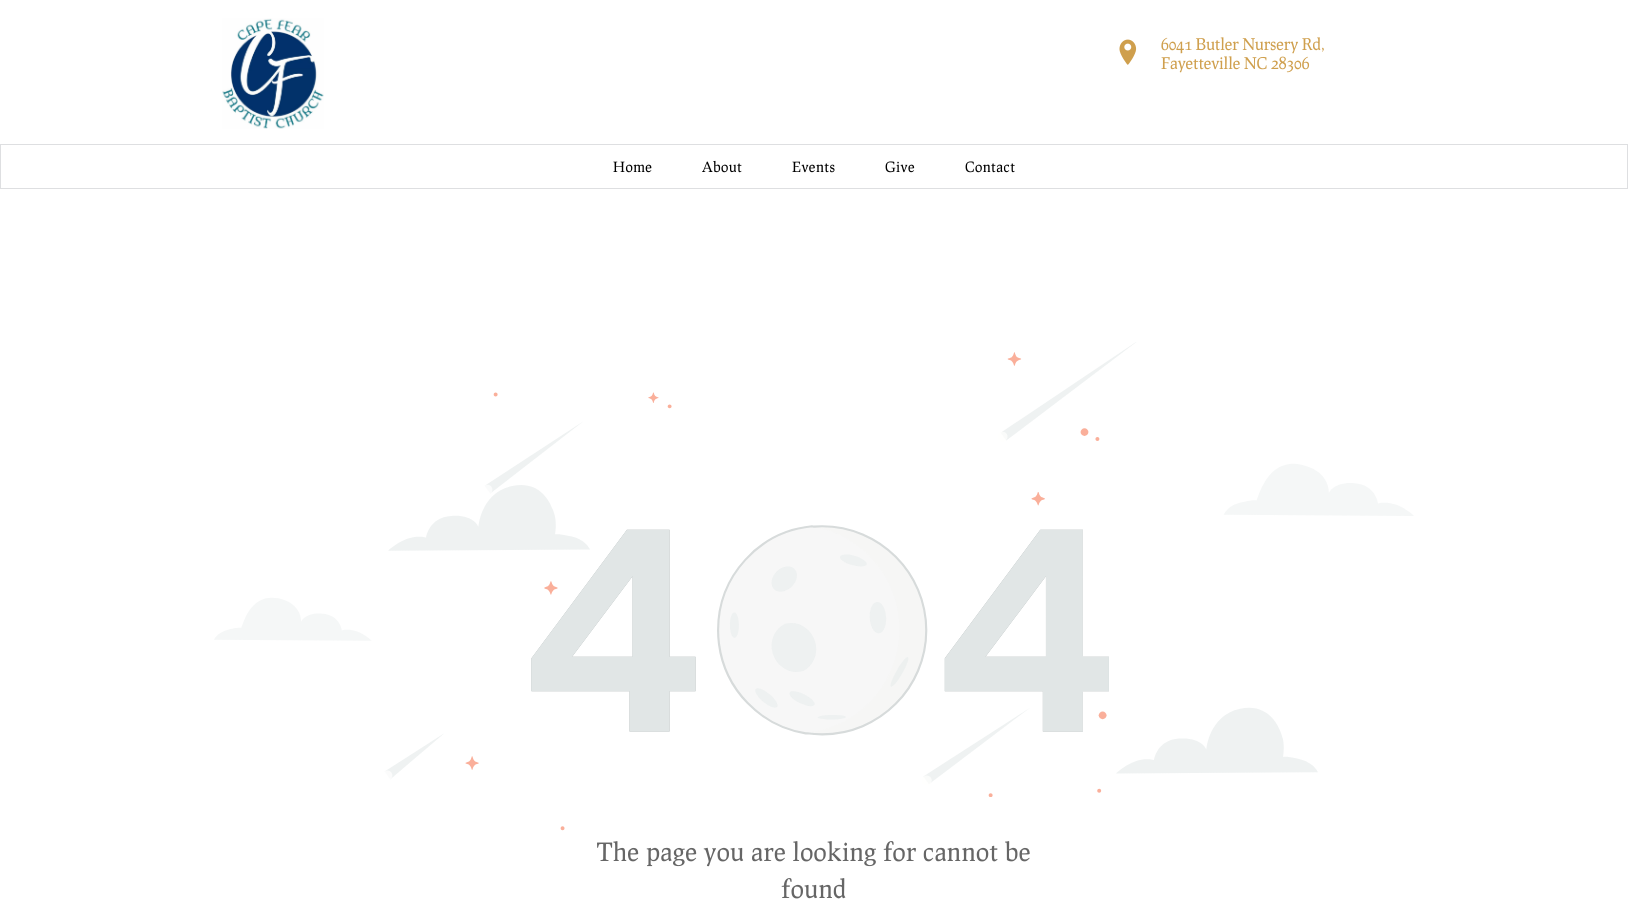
import math
import cairo


def write_spaced(ctx, x, y, s, letter, word):
	ctx.move_to(x, y)
	for ch in s:
		ctx.show_text(ch)
		ctx.rel_move_to(letter + word * (ch == ' '), 0)

def paste(ctx, path, x, y, w, h):
	ctx.save()
	ctx.set_source_surface(cairo.ImageSurface.create_from_png(path), x, y)
	ctx.rectangle(x, y, w, h)
	ctx.fill()
	ctx.restore()

def draw(ctx):
	ctx.set_source_rgb(1, 1, 1)
	ctx.paint()
	paste(ctx, 'media/1.png', 222, 18, 102, 111)
	paste(ctx, 'media/2.png', 1119, 39, 18, 26)
	ctx.select_font_face('Prociono')
	ctx.set_font_size(16)
	ctx.set_source_rgb(0.812, 0.624, 0.302)
	ctx.move_to(1161, 50)
	ctx.show_text('6041 Butler Nursery Rd,')
	ctx.move_to(1161, 69)
	ctx.show_text('Fayetteville NC 28306')
	ctx.rectangle(0.5, 144.5, 1627, 44)
	ctx.set_source_rgb(0.871, 0.875, 0.882)
	ctx.set_line_width(1)
	ctx.stroke()
	ctx.set_font_size(14)
	ctx.set_source_rgb(0, 0, 0)
	for x, y, s in [
		(613, 172, 'Home'),
		(702, 172, 'About'),
		(792, 172, 'Events'),
		(885, 172, 'Give'),
		(965, 172, 'Contact'),
	]:
		write_spaced(ctx, x, y, s, 0.5, 0)
	paste(ctx, 'media/3.png', 214, 342, 1200, 489)
	ctx.set_font_size(25)
	ctx.set_source_rgb(0.4, 0.4, 0.4)
	write_spaced(ctx, 597, 861, 'The page you are looking for cannot be', 0.5, 0)
	write_spaced(ctx, 781, 898, 'found', 0.5, 0)


surface = cairo.ImageSurface(cairo.FORMAT_RGB24, 1628, 903)
ctx = cairo.Context(surface)
options = cairo.FontOptions()
options.set_hint_metrics(cairo.HINT_METRICS_OFF)
options.set_hint_style(cairo.HINT_STYLE_NONE)
ctx.set_font_options(options)
ctx.set_miter_limit(4)
draw(ctx)
surface.write_to_png('image.png')
